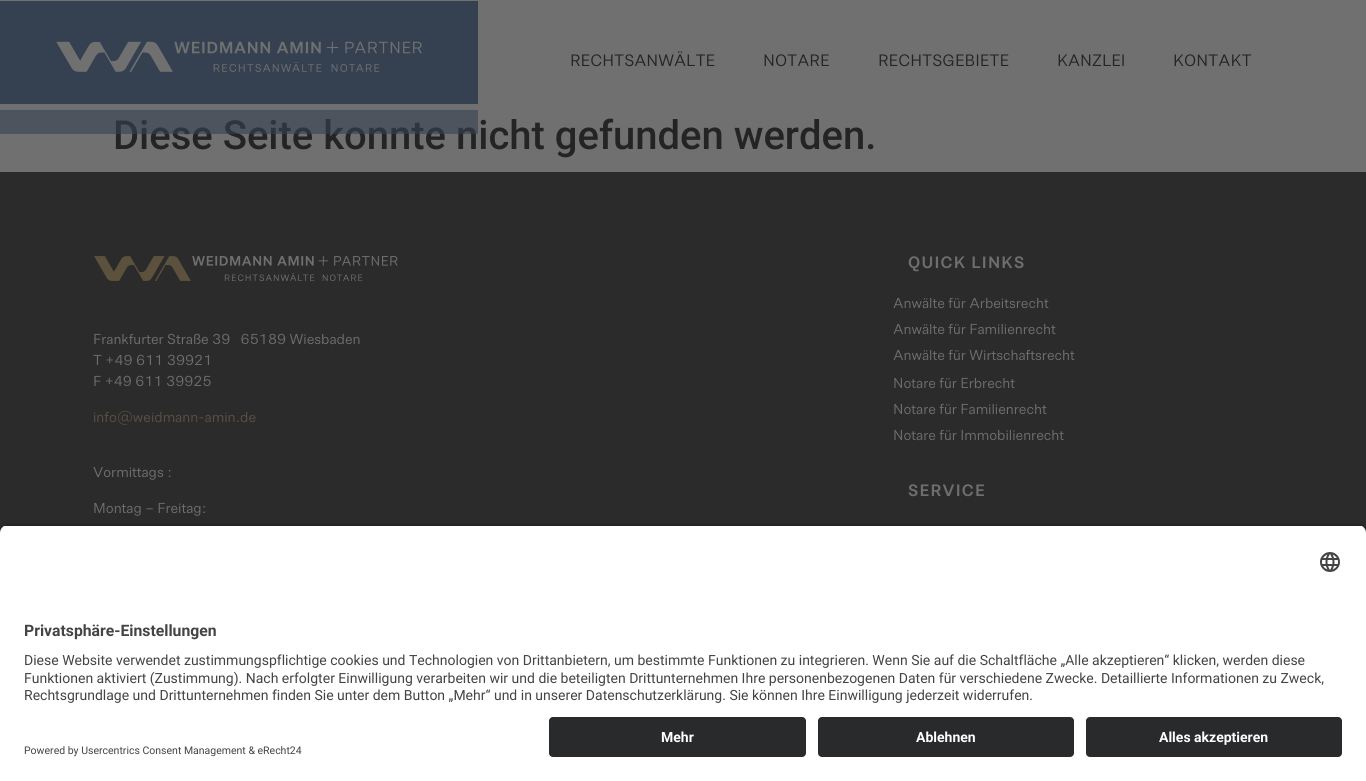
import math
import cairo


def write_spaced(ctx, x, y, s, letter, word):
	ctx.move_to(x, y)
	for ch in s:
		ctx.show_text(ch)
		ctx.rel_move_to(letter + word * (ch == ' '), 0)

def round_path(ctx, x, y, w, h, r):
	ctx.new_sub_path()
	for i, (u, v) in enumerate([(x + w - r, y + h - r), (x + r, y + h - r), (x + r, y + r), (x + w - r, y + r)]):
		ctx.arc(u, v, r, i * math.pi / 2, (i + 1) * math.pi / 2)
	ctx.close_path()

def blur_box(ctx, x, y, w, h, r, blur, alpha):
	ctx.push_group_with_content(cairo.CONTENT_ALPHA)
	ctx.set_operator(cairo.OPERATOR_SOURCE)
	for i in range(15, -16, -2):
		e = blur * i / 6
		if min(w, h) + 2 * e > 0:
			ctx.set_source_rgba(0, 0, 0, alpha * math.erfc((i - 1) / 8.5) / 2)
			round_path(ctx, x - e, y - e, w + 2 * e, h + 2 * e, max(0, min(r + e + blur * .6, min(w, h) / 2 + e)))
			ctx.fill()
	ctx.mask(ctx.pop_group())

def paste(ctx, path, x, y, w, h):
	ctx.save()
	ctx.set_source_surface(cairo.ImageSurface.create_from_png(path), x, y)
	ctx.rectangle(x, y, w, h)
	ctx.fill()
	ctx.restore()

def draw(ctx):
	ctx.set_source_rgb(0.439, 0.439, 0.439)
	ctx.paint()
	ctx.select_font_face('Roboto Medium')
	ctx.set_font_size(40)
	ctx.set_source_rgb(0.141, 0.141, 0.141)
	ctx.move_to(113, 149)
	ctx.show_text('Diese Seite konnte nicht gefunden werden.')
	paste(ctx, 'media/1.png', 0, 1, 478, 133)
	ctx.select_font_face('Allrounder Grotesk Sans')
	ctx.set_font_size(16)
	for x, y, s in [
		(570, 66, 'RECHTSANWÄLTE'),
		(763, 66, 'NOTARE'),
		(878, 66, 'RECHTSGEBIETE'),
		(1057, 66, 'KANZLEI'),
		(1173, 66, 'KONTAKT'),
	]:
		ctx.move_to(x, y)
		ctx.show_text(s)
	ctx.set_source_rgb(0.169, 0.169, 0.169)
	ctx.rectangle(0, 172, 1366, 361)
	ctx.fill()
	paste(ctx, 'media/2.png', 94, 256, 304, 26)
	ctx.set_font_size(14)
	ctx.set_source_rgb(0.427, 0.431, 0.431)
	for x, y, s in [
		(93, 344, 'Frankfurter Straße 39   65189 Wiesbaden'),
		(93, 365, 'T +49 611 39921'),
		(93, 386, 'F +49 611 39925'),
	]:
		ctx.move_to(x, y)
		ctx.show_text(s)
	ctx.set_source_rgb(0.353, 0.314, 0.255)
	ctx.move_to(93, 422)
	ctx.show_text('info@weidmann-amin.de')
	ctx.set_source_rgb(0.427, 0.431, 0.431)
	ctx.move_to(93, 477)
	ctx.show_text('Vormittags :')
	ctx.move_to(93, 513)
	ctx.show_text('Montag – Freitag:')
	ctx.select_font_face('Allrounder Grotesk Sans', cairo.FONT_SLANT_NORMAL, cairo.FONT_WEIGHT_BOLD)
	ctx.set_font_size(16)
	write_spaced(ctx, 908, 268, 'QUICK LINKS', 1.25, 0)
	ctx.select_font_face('Allrounder Grotesk Sans')
	ctx.set_font_size(14)
	for x, y, s in [
		(893, 308, 'Anwälte für Arbeitsrecht'),
		(893, 334, 'Anwälte für Familienrecht'),
		(893, 360, 'Anwälte für Wirtschaftsrecht'),
		(893, 388, 'Notare für Erbrecht'),
		(893, 414, 'Notare für Familienrecht'),
		(893, 440, 'Notare für Immobilienrecht'),
	]:
		ctx.move_to(x, y)
		ctx.show_text(s)
	ctx.select_font_face('Allrounder Grotesk Sans', cairo.FONT_SLANT_NORMAL, cairo.FONT_WEIGHT_BOLD)
	ctx.set_font_size(16)
	write_spaced(ctx, 908, 496, 'SERVICE', 1.25, 0)
	ctx.set_source_rgb(0, 0, 0)
	blur_box(ctx, 0, 528, 1366, 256, 8, 3.5, 0.8)
	ctx.save()
	ctx.new_path()
	ctx.move_to(8, 525)
	ctx.line_to(1358, 525)
	ctx.curve_to(1362.5, 525, 1366, 528.5, 1366, 533)
	ctx.line_to(1366, 709)
	ctx.line_to(0, 709)
	ctx.line_to(0, 533)
	ctx.curve_to(0, 528.5, 3.5, 525, 8, 525)
	ctx.close_path()
	ctx.clip()
	ctx.set_source_rgb(1, 1, 1)
	ctx.rectangle(0, 526, 1366, 183)
	ctx.fill()
	ctx.restore()
	paste(ctx, 'media/3.png', 1320, 552, 20, 20)
	ctx.select_font_face('Roboto', cairo.FONT_SLANT_NORMAL, cairo.FONT_WEIGHT_BOLD)
	ctx.set_font_size(15.75)
	ctx.set_source_rgb(0.267, 0.267, 0.267)
	ctx.move_to(24, 636)
	ctx.show_text('Privatsphäre-Einstellungen')
	ctx.select_font_face('Roboto')
	ctx.set_font_size(14)
	for x, y, s in [
		(24, 665, 'Diese Website verwendet zustimmungspflichtige cookies und Technologien von Drittanbietern, um bestimmte Funktionen zu integrieren. Wenn Sie auf die Schaltfläche „Alle akzeptieren“ klicken, werden diese'),
		(24, 683, 'Funktionen aktiviert (Zustimmung). Nach erfolgter Einwilligung verarbeiten wir und die beteiligten Drittunternehmen Ihre personenbezogenen Daten für verschiedene Zwecke. Detaillierte Informationen zu Zweck,'),
		(24, 700, 'Rechtsgrundlage und Drittunternehmen finden Sie unter dem Button „Mehr“ und in unserer Datenschutzerklärung. Sie können Ihre Einwilligung jederzeit widerrufen.'),
	]:
		ctx.move_to(x, y)
		ctx.show_text(s)
	ctx.set_source_rgb(1, 1, 1)
	ctx.rectangle(0, 709, 1366, 72)
	ctx.fill()
	ctx.set_source_rgb(0.161, 0.165, 0.169)
	round_path(ctx, 549, 717, 257, 40, 4)
	ctx.fill()
	ctx.select_font_face('Roboto', cairo.FONT_SLANT_NORMAL, cairo.FONT_WEIGHT_BOLD)
	ctx.set_source_rgb(1, 1, 1)
	ctx.move_to(661, 742)
	ctx.show_text('Mehr')
	ctx.set_source_rgb(0.161, 0.165, 0.169)
	round_path(ctx, 818, 717, 256, 40, 4)
	ctx.fill()
	ctx.set_source_rgb(1, 1, 1)
	ctx.move_to(916, 742)
	ctx.show_text('Ablehnen')
	ctx.set_source_rgb(0.161, 0.165, 0.169)
	round_path(ctx, 1086, 717, 256, 40, 4)
	ctx.fill()
	ctx.set_source_rgb(1, 1, 1)
	ctx.move_to(1159, 742)
	ctx.show_text('Alles akzeptieren')
	ctx.select_font_face('Roboto')
	ctx.set_font_size(10.5)
	ctx.set_source_rgb(0.267, 0.267, 0.267)
	ctx.move_to(24, 754)
	ctx.show_text('Powered by Usercentrics Consent Management & eRecht24')


surface = cairo.ImageSurface(cairo.FORMAT_RGB24, 1366, 781)
ctx = cairo.Context(surface)
options = cairo.FontOptions()
options.set_hint_metrics(cairo.HINT_METRICS_OFF)
options.set_hint_style(cairo.HINT_STYLE_NONE)
ctx.set_font_options(options)
ctx.set_miter_limit(4)
draw(ctx)
surface.write_to_png('image.png')
